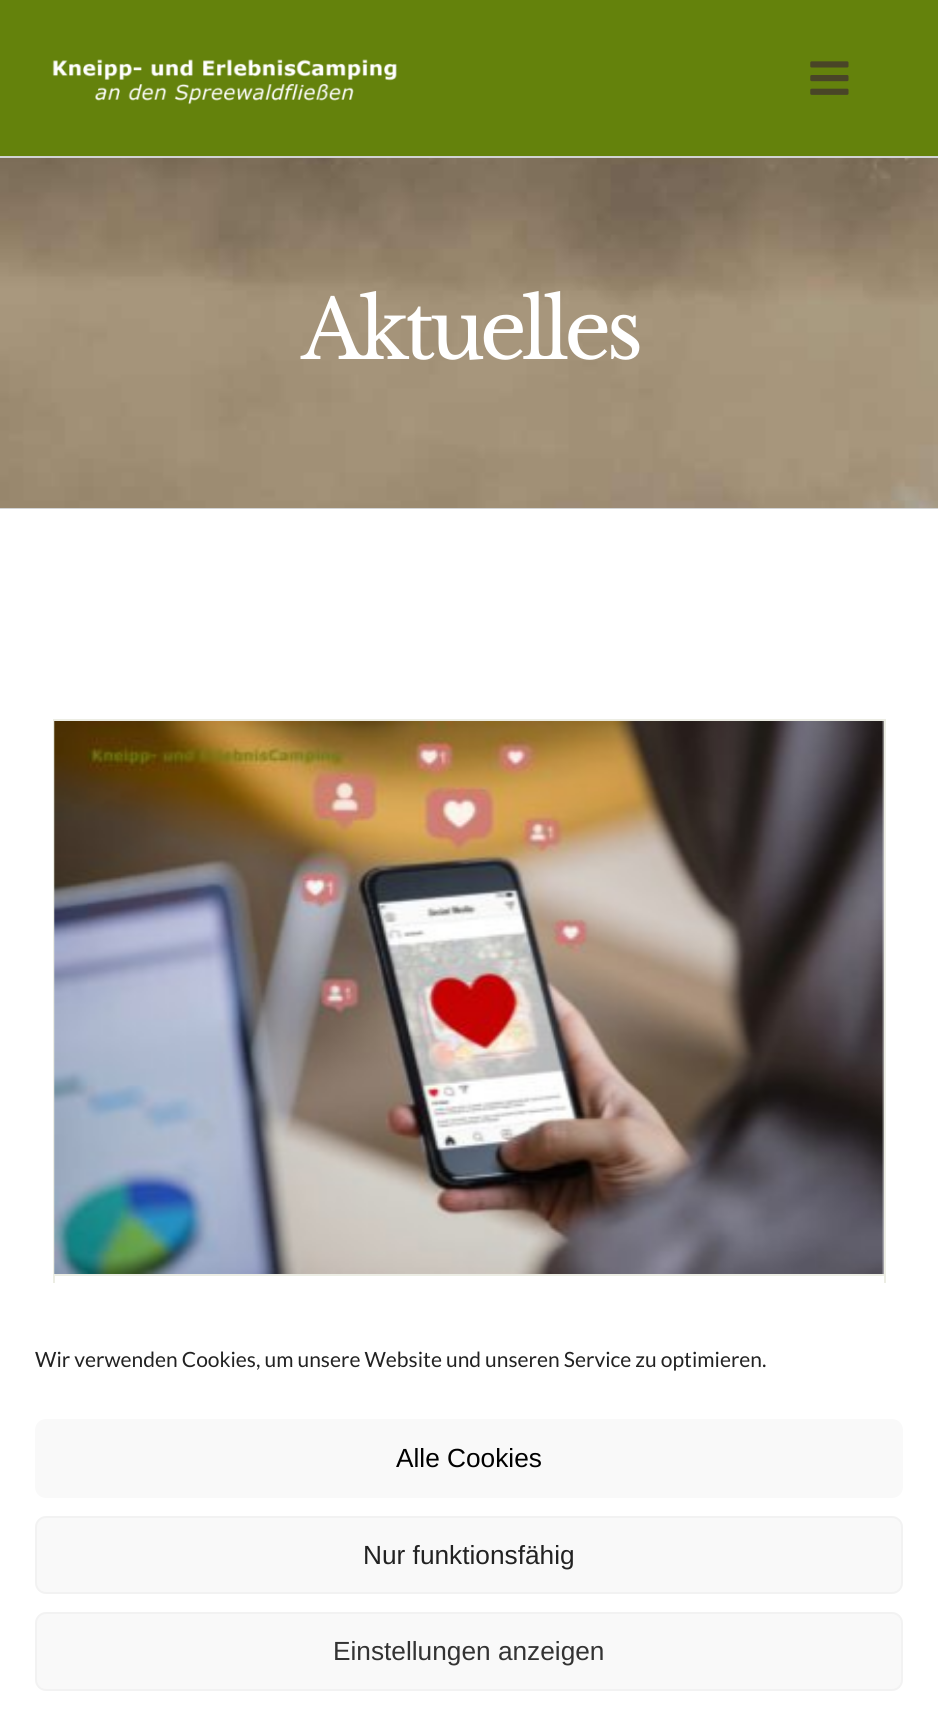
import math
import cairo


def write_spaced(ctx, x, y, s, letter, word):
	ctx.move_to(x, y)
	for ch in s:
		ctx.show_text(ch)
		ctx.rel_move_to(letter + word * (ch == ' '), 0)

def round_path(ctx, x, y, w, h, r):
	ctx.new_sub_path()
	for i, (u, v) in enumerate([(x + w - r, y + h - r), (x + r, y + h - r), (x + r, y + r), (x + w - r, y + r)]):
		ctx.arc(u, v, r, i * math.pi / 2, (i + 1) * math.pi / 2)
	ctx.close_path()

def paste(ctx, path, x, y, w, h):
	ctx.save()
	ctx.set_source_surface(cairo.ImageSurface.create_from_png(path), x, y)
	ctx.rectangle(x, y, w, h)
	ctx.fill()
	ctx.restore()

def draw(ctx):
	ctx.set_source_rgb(1, 1, 1)
	ctx.paint()
	ctx.set_source_rgb(0.392, 0.51, 0.047)
	ctx.rectangle(0, 0, 938, 156)
	ctx.fill()
	paste(ctx, 'media/1.png', 52, 59, 345, 46)
	paste(ctx, 'media/2.png', 810, 61, 39, 34)
	paste(ctx, 'media/3.png', 0, 158, 938, 350)
	ctx.set_source_rgb(0.824, 0.827, 0.831)
	ctx.rectangle(0, 156, 938, 2)
	ctx.fill()
	ctx.rectangle(0, 508, 938, 1)
	ctx.fill()
	ctx.select_font_face('Libre Baskerville')
	ctx.set_font_size(82)
	ctx.set_source_rgb(1, 1, 1)
	write_spaced(ctx, 301, 359, 'Aktuelles', -5.25, 0)
	ctx.set_source_rgb(0.925, 0.929, 0.894)
	ctx.rectangle(53, 719, 833, 2)
	ctx.rectangle(884, 719, 2, 564)
	ctx.rectangle(53, 719, 2, 564)
	ctx.rectangle(54, 1274, 830, 2)
	ctx.fill()
	paste(ctx, 'media/4.png', 54, 721, 830, 553)
	ctx.select_font_face('Lato')
	ctx.set_font_size(21)
	ctx.set_source_rgb(0.133, 0.133, 0.133)
	ctx.move_to(35, 1367)
	ctx.show_text('Wir verwenden Cookies, um unsere Website und unseren Service zu optimieren.')
	ctx.set_source_rgb(0.976, 0.976, 0.976)
	round_path(ctx, 35, 1419, 868, 79, 11)
	ctx.fill()
	ctx.select_font_face('Liberation Sans')
	ctx.set_font_size(26.25)
	ctx.set_source_rgb(0, 0, 0)
	ctx.move_to(396, 1467)
	ctx.show_text('Alle Cookies')
	ctx.set_source_rgb(0.976, 0.976, 0.976)
	round_path(ctx, 36, 1517, 866, 76, 10)
	ctx.fill_preserve()
	ctx.set_source_rgb(0.949, 0.949, 0.949)
	ctx.stroke()
	ctx.set_source_rgb(0.133, 0.133, 0.133)
	ctx.move_to(363, 1564)
	ctx.show_text('Nur funktionsfähig')
	ctx.set_source_rgb(0.976, 0.976, 0.976)
	round_path(ctx, 36, 1613, 866, 77, 10)
	ctx.fill_preserve()
	ctx.set_source_rgb(0.949, 0.949, 0.949)
	ctx.stroke()
	ctx.set_source_rgb(0.2, 0.2, 0.2)
	ctx.move_to(333, 1660)
	ctx.show_text('Einstellungen anzeigen')


surface = cairo.ImageSurface(cairo.FORMAT_RGB24, 938, 1734)
ctx = cairo.Context(surface)
options = cairo.FontOptions()
options.set_hint_metrics(cairo.HINT_METRICS_OFF)
options.set_hint_style(cairo.HINT_STYLE_NONE)
ctx.set_font_options(options)
ctx.set_miter_limit(4)
draw(ctx)
surface.write_to_png('image.png')
